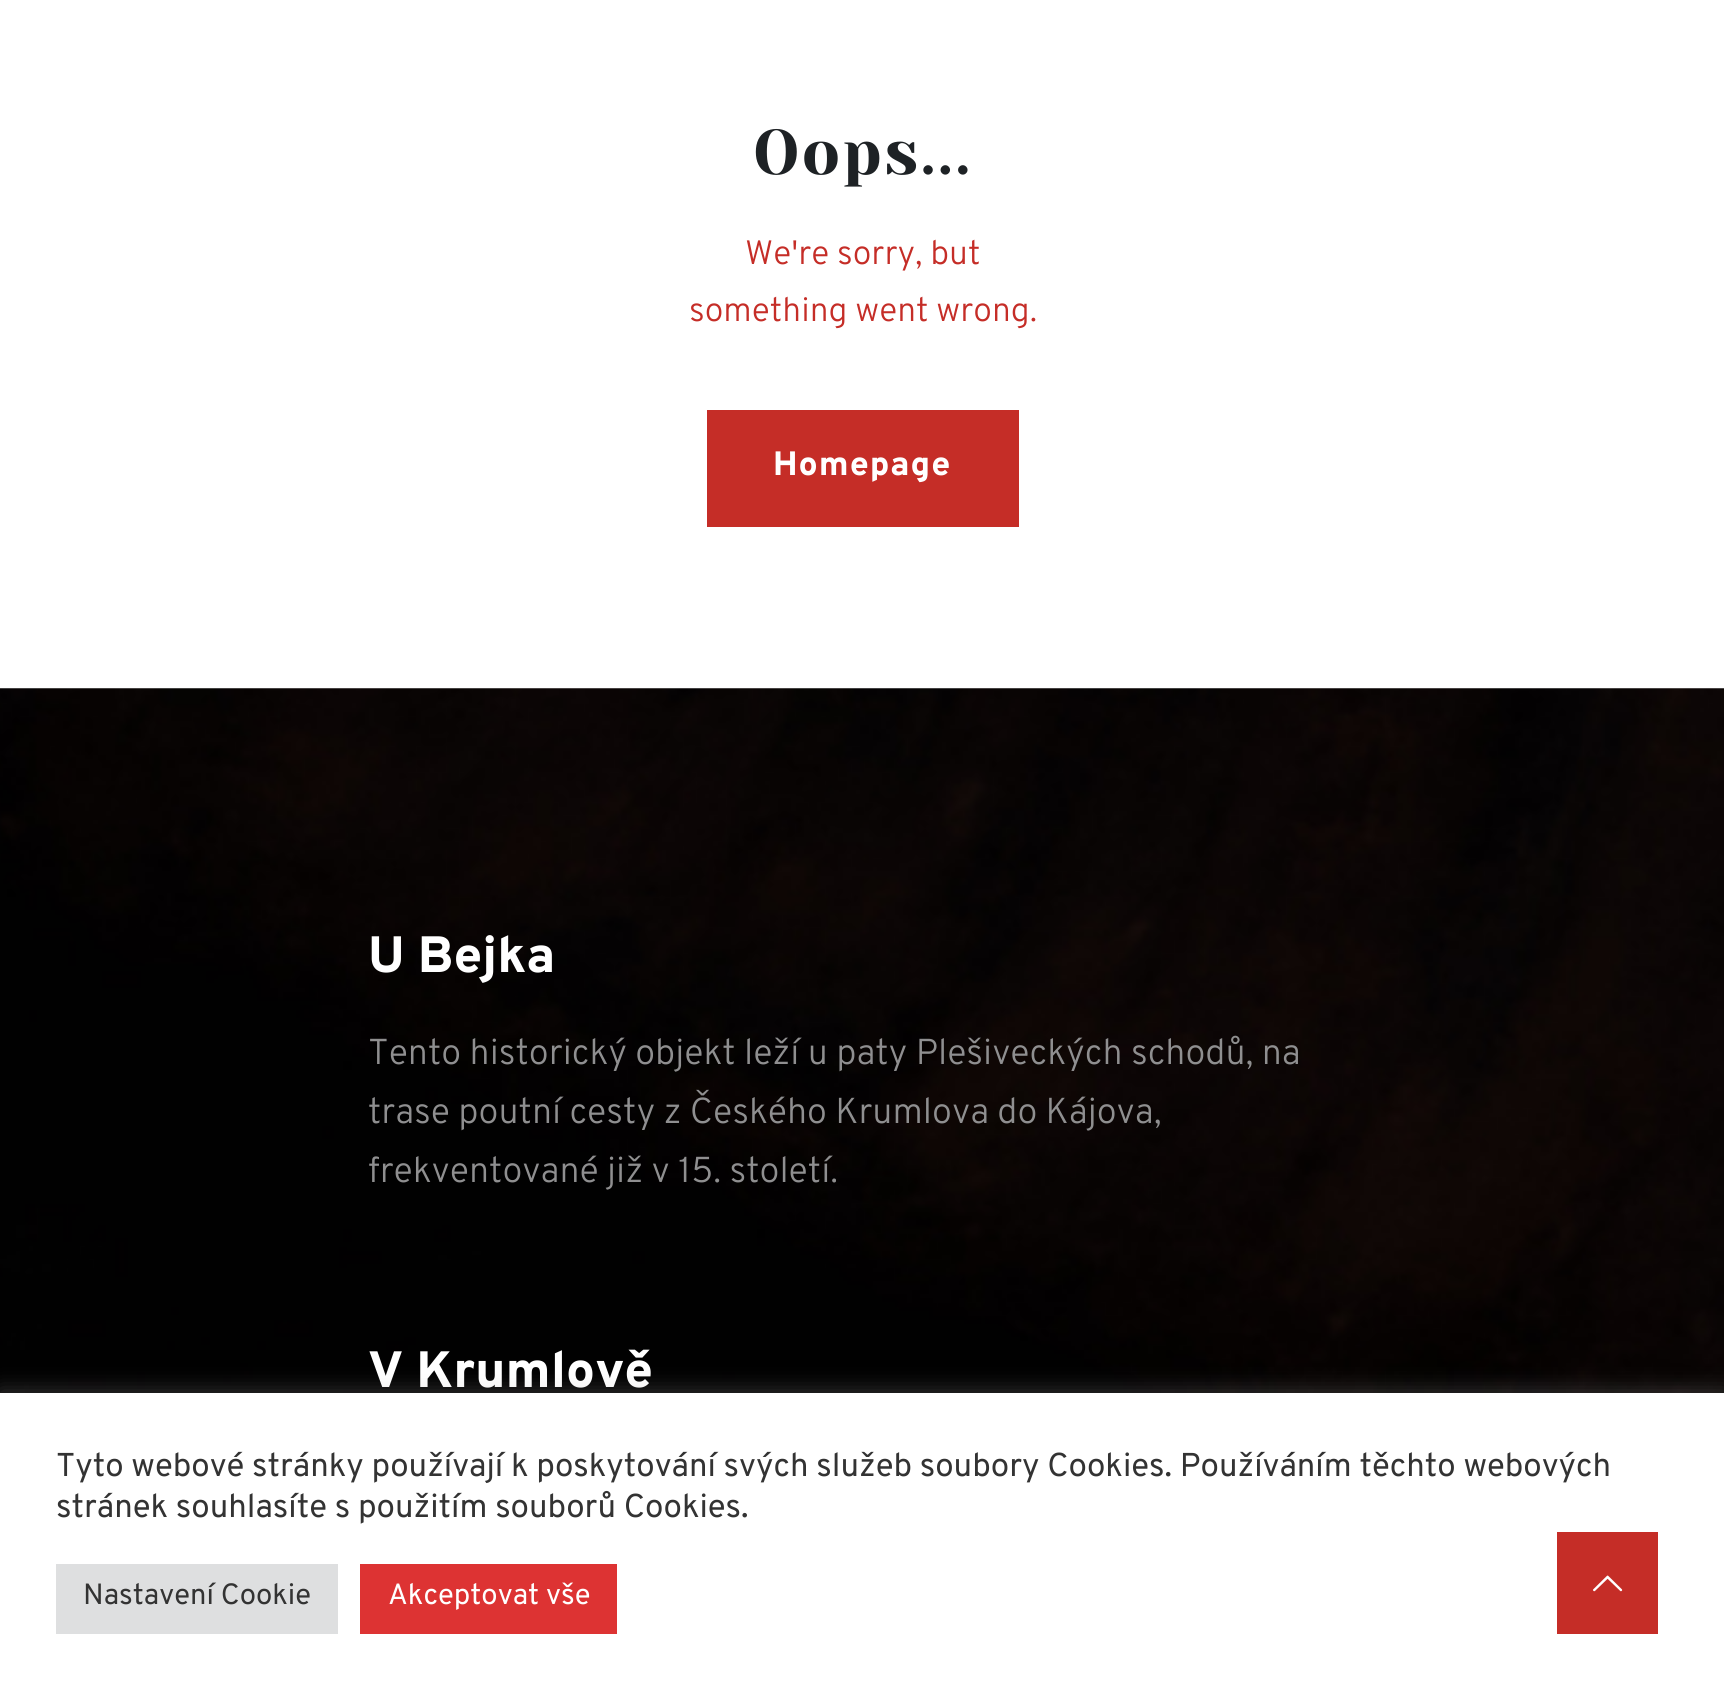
import math
import cairo


def write_spaced(ctx, x, y, s, letter, word):
	ctx.move_to(x, y)
	for ch in s:
		ctx.show_text(ch)
		ctx.rel_move_to(letter + word * (ch == ' '), 0)

def round_path(ctx, x, y, w, h, r):
	ctx.new_sub_path()
	for i, (u, v) in enumerate([(x + w - r, y + h - r), (x + r, y + h - r), (x + r, y + r), (x + w - r, y + r)]):
		ctx.arc(u, v, r, i * math.pi / 2, (i + 1) * math.pi / 2)
	ctx.close_path()

def blur_box(ctx, x, y, w, h, r, blur, alpha):
	ctx.push_group_with_content(cairo.CONTENT_ALPHA)
	ctx.set_operator(cairo.OPERATOR_SOURCE)
	for i in range(15, -16, -2):
		e = blur * i / 6
		if min(w, h) + 2 * e > 0:
			ctx.set_source_rgba(0, 0, 0, alpha * math.erfc((i - 1) / 8.5) / 2)
			round_path(ctx, x - e, y - e, w + 2 * e, h + 2 * e, max(0, min(r + e + blur * .6, min(w, h) / 2 + e)))
			ctx.fill()
	ctx.mask(ctx.pop_group())

def paste(ctx, path, x, y, w, h):
	ctx.save()
	ctx.set_source_surface(cairo.ImageSurface.create_from_png(path), x, y)
	ctx.rectangle(x, y, w, h)
	ctx.fill()
	ctx.restore()

def draw(ctx):
	ctx.set_source_rgb(1, 1, 1)
	ctx.paint()
	ctx.select_font_face('Yeseva One')
	ctx.set_font_size(63)
	ctx.set_source_rgb(0.118, 0.133, 0.145)
	write_spaced(ctx, 753, 174, 'Oops...', 2.25, 0)
	ctx.select_font_face('Overpass Light')
	ctx.set_font_size(33.75)
	ctx.set_source_rgb(0.773, 0.176, 0.153)
	ctx.move_to(745, 264)
	ctx.show_text('We\'re sorry, but')
	ctx.move_to(689, 321)
	ctx.show_text('something went wrong.')
	ctx.rectangle(707, 410, 312, 117)
	ctx.fill()
	ctx.select_font_face('Overpass ExtraBold')
	ctx.set_source_rgb(1, 1, 1)
	write_spaced(ctx, 773, 475, 'Homepage', 1, 0)
	paste(ctx, 'media/1.png', 0, 688, 1724, 705)
	ctx.set_font_size(51)
	ctx.move_to(368, 972)
	ctx.show_text('U Bejka')
	ctx.select_font_face('Overpass Light')
	ctx.set_font_size(36)
	ctx.set_source_rgb(0.561, 0.561, 0.565)
	for x, y, s in [
		(368, 1064, 'Tento historický objekt leží u paty Plešiveckých schodů, na'),
		(368, 1123, 'trase poutní cesty z Českého Krumlova do Kájova,'),
		(368, 1182, 'frekventované již v 15. století.'),
	]:
		ctx.move_to(x, y)
		ctx.show_text(s)
	ctx.select_font_face('Overpass ExtraBold')
	ctx.set_font_size(51)
	ctx.set_source_rgb(1, 1, 1)
	ctx.move_to(368, 1387)
	ctx.show_text('V Krumlově')
	ctx.set_source_rgb(0.675, 0.671, 0.671)
	blur_box(ctx, 0, 1391, 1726, 308, 0, 11, 0.3)
	ctx.set_source_rgb(1, 1, 1)
	ctx.rectangle(0, 1393, 1724, 308)
	ctx.fill()
	ctx.select_font_face('Overpass')
	ctx.set_font_size(33)
	ctx.set_source_rgb(0.2, 0.2, 0.2)
	ctx.move_to(56, 1476)
	ctx.show_text('Tyto webové stránky používají k poskytování svých služeb soubory Cookies. Používáním těchto webových')
	ctx.move_to(56, 1517)
	ctx.show_text('stránek souhlasíte s použitím souborů Cookies.')
	ctx.set_source_rgb(0.871, 0.875, 0.878)
	ctx.rectangle(56, 1564, 282, 70)
	ctx.fill()
	ctx.set_font_size(29.25)
	ctx.set_source_rgb(0.2, 0.2, 0.2)
	ctx.move_to(83, 1604)
	ctx.show_text('Nastavení Cookie')
	ctx.set_source_rgb(0.867, 0.2, 0.2)
	ctx.rectangle(360, 1564, 257, 70)
	ctx.fill()
	ctx.set_source_rgb(1, 1, 1)
	ctx.move_to(388, 1604)
	ctx.show_text('Akceptovat vše')
	ctx.set_source_rgb(0.773, 0.176, 0.153)
	ctx.rectangle(1557, 1532, 101, 102)
	ctx.fill()
	paste(ctx, 'media/2.png', 1593, 1575, 30, 17)


surface = cairo.ImageSurface(cairo.FORMAT_RGB24, 1724, 1701)
ctx = cairo.Context(surface)
options = cairo.FontOptions()
options.set_hint_metrics(cairo.HINT_METRICS_OFF)
options.set_hint_style(cairo.HINT_STYLE_NONE)
ctx.set_font_options(options)
ctx.set_miter_limit(4)
draw(ctx)
surface.write_to_png('image.png')
